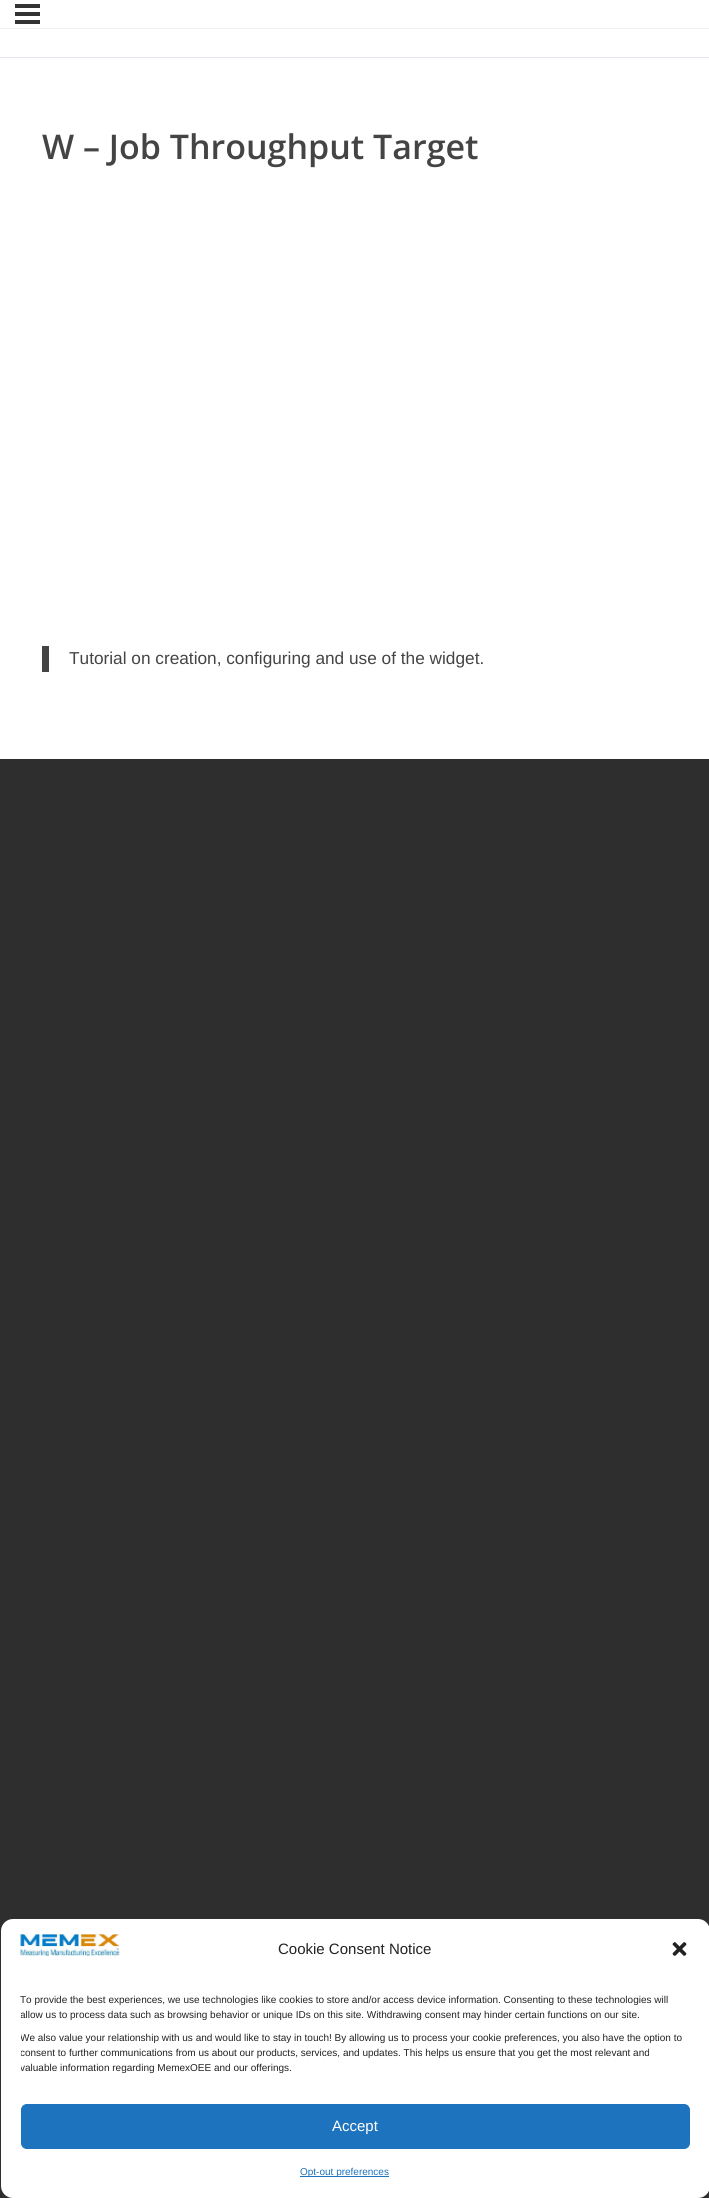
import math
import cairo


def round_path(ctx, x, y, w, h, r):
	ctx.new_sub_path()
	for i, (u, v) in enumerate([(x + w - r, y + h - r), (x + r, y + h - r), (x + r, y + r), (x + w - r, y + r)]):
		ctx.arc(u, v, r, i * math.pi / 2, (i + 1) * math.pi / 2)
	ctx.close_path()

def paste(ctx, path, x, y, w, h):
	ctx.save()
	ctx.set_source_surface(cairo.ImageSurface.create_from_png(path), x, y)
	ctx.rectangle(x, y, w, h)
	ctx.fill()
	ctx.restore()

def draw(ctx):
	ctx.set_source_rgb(0.18, 0.18, 0.18)
	ctx.paint()
	ctx.set_source_rgb(1, 1, 1)
	ctx.rectangle(0, 0, 709, 759)
	ctx.fill()
	ctx.set_source_rgb(0.886, 0.906, 0.929)
	ctx.rectangle(0, 57, 709, 1)
	ctx.fill()
	ctx.set_source_rgb(0.2, 0.2, 0.2)
	ctx.rectangle(15, 4, 25, 4)
	ctx.rectangle(15, 12, 25, 4)
	ctx.rectangle(15, 20, 25, 4)
	ctx.fill()
	ctx.set_source_rgb(0.937, 0.937, 0.937)
	ctx.rectangle(0, 28, 709, 1)
	ctx.fill()
	ctx.select_font_face('Open Sans SemiBold')
	ctx.set_font_size(34)
	ctx.set_source_rgb(0.267, 0.267, 0.267)
	ctx.move_to(42, 159)
	ctx.show_text('W – Job Throughput Target')
	ctx.rectangle(42, 646, 7, 26)
	ctx.fill()
	ctx.select_font_face('Liberation Sans')
	ctx.set_font_size(17.25)
	ctx.move_to(69, 664)
	ctx.show_text('Tutorial on creation, configuring and use of the widget.')
	ctx.set_source_rgb(1, 1, 1)
	round_path(ctx, 1, 1919, 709, 279, 12)
	ctx.fill()
	paste(ctx, 'media/1.png', 20, 1934, 100, 22)
	ctx.set_font_size(15)
	ctx.set_source_rgb(0.133, 0.133, 0.133)
	ctx.move_to(278, 1954)
	ctx.show_text('Cookie Consent Notice')
	paste(ctx, 'media/2.png', 672, 1942, 15, 14)
	ctx.set_font_size(10)
	ctx.move_to(20, 2003)
	ctx.show_text('To provide the best experiences, we use technologies like cookies to store and/or access device information. Consenting to these technologies will')
	ctx.save()
	ctx.rectangle(21, 1983, 669, 101)
	ctx.clip()
	for x, y, s in [
		(20, 2018, 'allow us to process data such as browsing behavior or unique IDs on this site. Withdrawing consent may hinder certain functions on our site.'),
		(20, 2041, 'We also value your relationship with us and would like to stay in touch! By allowing us to process your cookie preferences, you also have the option to'),
		(20, 2056, 'consent to further communications from us about our products, services, and updates. This helps us ensure that you get the most relevant and'),
		(20, 2071, 'valuable information regarding MemexOEE and our offerings.'),
	]:
		ctx.move_to(x, y)
		ctx.show_text(s)
	ctx.restore()
	ctx.set_source_rgb(0.118, 0.451, 0.745)
	round_path(ctx, 21.5, 2104.5, 668, 44, 5.5)
	ctx.fill_preserve()
	ctx.set_line_width(1)
	ctx.stroke()
	ctx.set_font_size(15)
	ctx.set_source_rgb(1, 1, 1)
	ctx.move_to(332, 2131)
	ctx.show_text('Accept')
	ctx.set_source_rgb(0.118, 0.451, 0.745)
	ctx.rectangle(300, 2176, 89, 1)
	ctx.fill()
	ctx.set_font_size(10)
	ctx.move_to(300, 2175)
	ctx.show_text('Opt-out preferences')


surface = cairo.ImageSurface(cairo.FORMAT_RGB24, 709, 2198)
ctx = cairo.Context(surface)
options = cairo.FontOptions()
options.set_hint_metrics(cairo.HINT_METRICS_OFF)
options.set_hint_style(cairo.HINT_STYLE_NONE)
ctx.set_font_options(options)
ctx.set_miter_limit(4)
draw(ctx)
surface.write_to_png('image.png')
